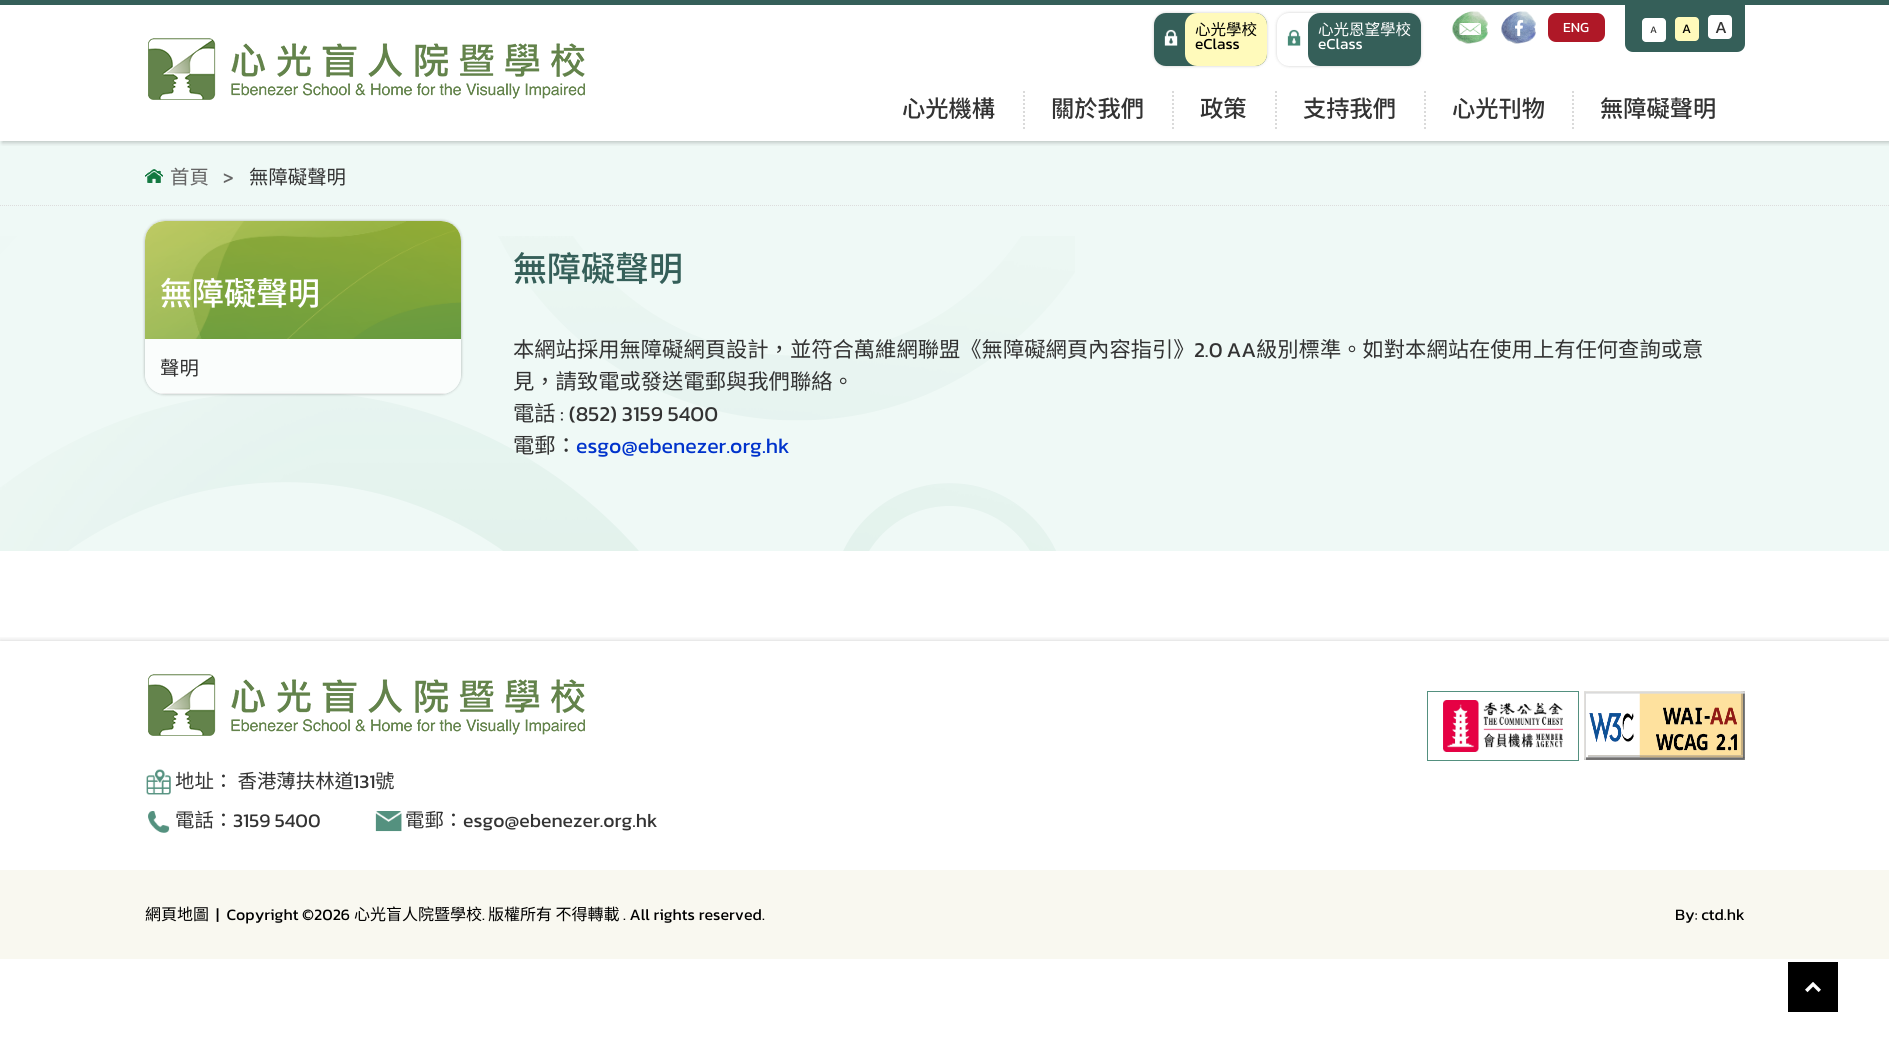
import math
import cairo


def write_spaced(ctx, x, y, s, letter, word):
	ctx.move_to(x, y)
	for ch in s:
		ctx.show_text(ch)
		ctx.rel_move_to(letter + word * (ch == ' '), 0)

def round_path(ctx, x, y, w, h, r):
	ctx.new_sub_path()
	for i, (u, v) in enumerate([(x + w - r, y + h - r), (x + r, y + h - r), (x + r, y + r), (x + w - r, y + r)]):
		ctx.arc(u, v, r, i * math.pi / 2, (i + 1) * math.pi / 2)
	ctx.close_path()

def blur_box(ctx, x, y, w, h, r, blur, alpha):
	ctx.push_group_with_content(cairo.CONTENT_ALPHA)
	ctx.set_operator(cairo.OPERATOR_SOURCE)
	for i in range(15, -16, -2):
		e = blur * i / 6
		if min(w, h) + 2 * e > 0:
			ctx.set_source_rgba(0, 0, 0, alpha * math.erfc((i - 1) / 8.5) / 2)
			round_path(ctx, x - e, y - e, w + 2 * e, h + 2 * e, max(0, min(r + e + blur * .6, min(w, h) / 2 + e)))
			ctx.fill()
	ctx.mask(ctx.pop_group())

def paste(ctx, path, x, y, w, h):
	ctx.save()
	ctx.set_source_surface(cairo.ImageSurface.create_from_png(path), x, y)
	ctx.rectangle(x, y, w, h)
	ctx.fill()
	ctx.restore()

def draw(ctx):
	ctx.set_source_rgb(1, 1, 1)
	ctx.paint()
	ctx.set_source_rgb(0.937, 0.973, 0.961)
	ctx.rectangle(0, 141, 1889, 410)
	ctx.fill()
	ctx.save()
	ctx.rectangle(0, 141, 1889, 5)
	ctx.clip()
	ctx.set_source_rgb(0, 0, 0)
	blur_box(ctx, 2, 2, 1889, 141, 0, 2, 0.2)
	ctx.restore()
	ctx.set_source_rgb(0.208, 0.373, 0.349)
	ctx.rectangle(0, 0, 1889, 5)
	ctx.fill()
	paste(ctx, 'media/1.png', 148, 38, 437, 62)
	ctx.set_source_rgb(0, 0, 0)
	blur_box(ctx, 1154, 13, 113, 53, 12, 1.5, 0.2)
	ctx.set_source_rgb(0.208, 0.373, 0.349)
	round_path(ctx, 1154, 13, 113, 53, 12)
	ctx.fill()
	paste(ctx, 'media/2.png', 1164, 29, 14, 17)
	ctx.set_source_rgb(1, 0.98, 0.733)
	round_path(ctx, 1185, 13, 82, 53, 12)
	ctx.fill()
	ctx.select_font_face('Noto Sans TC')
	ctx.set_font_size(15.5)
	ctx.set_source_rgb(0, 0, 0)
	ctx.move_to(1195, 35)
	ctx.show_text('心光學校')
	ctx.select_font_face('Kanit')
	ctx.move_to(1195, 49)
	ctx.show_text('eClass')
	ctx.set_source_rgb(0, 0, 0)
	blur_box(ctx, 1277, 13, 144, 53, 12, 1.5, 0.2)
	ctx.set_source_rgb(1, 1, 1)
	round_path(ctx, 1277, 13, 144, 53, 12)
	ctx.fill()
	paste(ctx, 'media/3.png', 1287, 29, 14, 17)
	ctx.set_source_rgb(0.208, 0.373, 0.349)
	round_path(ctx, 1308, 13, 113, 53, 12)
	ctx.fill()
	ctx.select_font_face('Noto Sans TC')
	ctx.set_source_rgb(1, 1, 1)
	ctx.move_to(1318, 35)
	ctx.show_text('心光恩望學校')
	ctx.select_font_face('Kanit')
	ctx.move_to(1318, 49)
	ctx.show_text('eClass')
	paste(ctx, 'media/4.png', 1452, 11, 36, 33)
	paste(ctx, 'media/5.png', 1501, 11, 35, 33)
	ctx.set_source_rgb(0.686, 0.094, 0.153)
	round_path(ctx, 1548, 13, 57, 29, 8)
	ctx.fill()
	ctx.set_font_size(14)
	ctx.set_source_rgb(1, 1, 1)
	ctx.move_to(1563, 32)
	ctx.show_text('ENG')
	ctx.set_source_rgb(0.208, 0.373, 0.349)
	ctx.new_path()
	ctx.move_to(1625, 5)
	ctx.line_to(1745, 5)
	ctx.line_to(1745, 44)
	ctx.curve_to(1745, 48.5, 1741.5, 52, 1737, 52)
	ctx.line_to(1633, 52)
	ctx.curve_to(1628.5, 52, 1625, 48.5, 1625, 44)
	ctx.close_path()
	ctx.fill()
	ctx.set_source_rgb(1, 1, 1)
	round_path(ctx, 1642, 18, 24, 24, 4)
	ctx.fill()
	ctx.set_font_size(10)
	ctx.set_source_rgb(0.2, 0.2, 0.2)
	ctx.move_to(1650, 33)
	ctx.show_text('A')
	ctx.set_source_rgb(1, 0.98, 0.733)
	round_path(ctx, 1675, 17, 24, 24, 4)
	ctx.fill()
	ctx.set_font_size(13)
	ctx.set_source_rgb(0, 0, 0)
	ctx.move_to(1682, 33)
	ctx.show_text('A')
	ctx.set_source_rgb(1, 1, 1)
	round_path(ctx, 1708, 15, 24, 24, 4)
	ctx.fill()
	ctx.set_font_size(17)
	ctx.set_source_rgb(0.2, 0.2, 0.2)
	ctx.move_to(1715, 33)
	ctx.show_text('A')
	ctx.select_font_face('Noto Sans TC Medium')
	ctx.set_font_size(23.25)
	ctx.move_to(902, 117)
	ctx.show_text('心光機構')
	ctx.new_path()
	ctx.move_to(1024, 91)
	ctx.line_to(1024, 131)
	ctx.set_source_rgb(0.855, 0.855, 0.855)
	ctx.set_dash([2, 2])
	ctx.stroke()
	ctx.set_source_rgb(0.2, 0.2, 0.2)
	ctx.move_to(1051, 117)
	ctx.show_text('關於我們')
	ctx.new_path()
	ctx.move_to(1173, 91)
	ctx.line_to(1173, 131)
	ctx.set_source_rgb(0.855, 0.855, 0.855)
	ctx.stroke()
	ctx.set_source_rgb(0.2, 0.2, 0.2)
	ctx.move_to(1200, 117)
	ctx.show_text('政策')
	ctx.new_path()
	ctx.move_to(1276, 91)
	ctx.line_to(1276, 131)
	ctx.set_source_rgb(0.855, 0.855, 0.855)
	ctx.stroke()
	ctx.set_source_rgb(0.2, 0.2, 0.2)
	ctx.move_to(1303, 117)
	ctx.show_text('支持我們')
	ctx.new_path()
	ctx.move_to(1425, 91)
	ctx.line_to(1425, 131)
	ctx.set_source_rgb(0.855, 0.855, 0.855)
	ctx.stroke()
	ctx.set_source_rgb(0.2, 0.2, 0.2)
	ctx.move_to(1452, 117)
	ctx.show_text('心光刊物')
	ctx.new_path()
	ctx.move_to(1573, 91)
	ctx.line_to(1573, 131)
	ctx.set_source_rgb(0.855, 0.855, 0.855)
	ctx.stroke()
	ctx.set_source_rgb(0.2, 0.2, 0.2)
	ctx.move_to(1600, 117)
	ctx.show_text('無障礙聲明')
	paste(ctx, 'media/6.png', 0, 236, 1075, 315)
	ctx.new_path()
	ctx.move_to(0, 205.5)
	ctx.line_to(1889, 205.5)
	ctx.set_source_rgb(0.867, 0.867, 0.867)
	ctx.set_line_width(1)
	ctx.set_dash([1, 1])
	ctx.stroke()
	paste(ctx, 'media/7.png', 145, 169, 18, 14)
	ctx.select_font_face('Noto Sans TC')
	ctx.set_font_size(19.4)
	ctx.set_source_rgb(0.4, 0.4, 0.4)
	ctx.move_to(170, 184)
	ctx.show_text('首頁')
	ctx.select_font_face('Kanit')
	ctx.move_to(223, 184)
	ctx.show_text('>')
	ctx.select_font_face('Noto Sans TC')
	ctx.set_source_rgb(0.2, 0.2, 0.2)
	ctx.move_to(249, 184)
	ctx.show_text('無障礙聲明')
	ctx.save()
	ctx.set_fill_rule(cairo.FILL_RULE_EVEN_ODD)
	ctx.new_path()
	ctx.move_to(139, 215)
	ctx.line_to(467, 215)
	ctx.line_to(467, 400)
	ctx.line_to(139, 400)
	ctx.close_path()
	ctx.move_to(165, 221)
	ctx.line_to(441, 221)
	ctx.curve_to(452, 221, 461, 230, 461, 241)
	ctx.line_to(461, 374)
	ctx.curve_to(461, 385, 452, 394, 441, 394)
	ctx.line_to(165, 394)
	ctx.curve_to(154, 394, 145, 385, 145, 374)
	ctx.line_to(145, 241)
	ctx.curve_to(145, 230, 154, 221, 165, 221)
	ctx.close_path()
	ctx.clip()
	ctx.set_source_rgb(0, 0, 0)
	blur_box(ctx, 145, 221, 316, 173, 20, 1.5, 0.3)
	ctx.restore()
	ctx.set_source_rgba(1, 1, 1, 0.7)
	round_path(ctx, 145, 221, 316, 173, 20)
	ctx.fill()
	paste(ctx, 'media/8.png', 145, 221, 316, 118)
	ctx.select_font_face('Noto Sans TC Medium')
	ctx.set_font_size(32)
	ctx.set_source_rgb(1, 1, 1)
	ctx.move_to(160, 305)
	ctx.show_text('無障礙聲明')
	ctx.save()
	round_path(ctx, 145, 221, 316, 173, 20)
	ctx.clip()
	ctx.set_source_rgb(0.925, 0.925, 0.925)
	ctx.rectangle(159, 393, 288, 1)
	ctx.fill()
	ctx.restore()
	ctx.select_font_face('Noto Sans TC')
	ctx.set_font_size(19.4)
	ctx.set_source_rgb(0.2, 0.2, 0.2)
	ctx.move_to(160, 375)
	ctx.show_text('聲明')
	ctx.select_font_face('Noto Sans TC Medium')
	ctx.set_font_size(34)
	ctx.set_source_rgb(0.208, 0.373, 0.349)
	ctx.move_to(513, 281)
	ctx.show_text('無障礙聲明')
	ctx.select_font_face('Noto Sans TC')
	ctx.set_font_size(21.3)
	ctx.set_source_rgb(0.2, 0.2, 0.2)
	ctx.move_to(513, 357)
	ctx.show_text('本網站採用無障礙網頁設計，並符合萬維網聯盟《無障礙網頁內容指引》')
	ctx.select_font_face('Kanit')
	write_spaced(ctx, 1194, 357, '2.0 AA', 0, -1)
	ctx.select_font_face('Noto Sans TC')
	for x, y, s in [
		(1256, 357, '級別標準。如對本網站在使用上有任何查詢或意'),
		(513, 389, '見，請致電或發送電郵與我們聯絡。'),
		(513, 421, '電話'),
	]:
		ctx.move_to(x, y)
		ctx.show_text(s)
	ctx.select_font_face('Kanit')
	ctx.move_to(560, 421)
	ctx.show_text(': (852) 3159 5400')
	ctx.select_font_face('Noto Sans TC')
	ctx.move_to(513, 453)
	ctx.show_text('電郵：')
	ctx.select_font_face('Kanit')
	ctx.set_source_rgb(0, 0.2, 0.8)
	ctx.move_to(576, 453)
	ctx.show_text('esgo@ebenezer.org.hk')
	ctx.save()
	ctx.rectangle(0, 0, 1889, 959)
	ctx.clip()
	ctx.rectangle(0, 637, 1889, 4)
	ctx.clip()
	ctx.set_source_rgb(0, 0, 0)
	blur_box(ctx, 0, 641, 1889, 318, 0, 3, 0.2)
	ctx.restore()
	ctx.rectangle(1427.5, 691.5, 151, 69)
	ctx.set_source_rgb(0.325, 0.565, 0.498)
	ctx.set_dash([])
	ctx.stroke()
	paste(ctx, 'media/9.png', 1443, 700, 120, 52)
	paste(ctx, 'media/10.png', 1584, 691, 161, 69)
	paste(ctx, 'media/1.png', 148, 674, 437, 62)
	paste(ctx, 'media/11.png', 146, 769, 25, 26)
	ctx.select_font_face('Noto Sans TC')
	ctx.set_font_size(19.4)
	ctx.set_source_rgb(0.2, 0.2, 0.2)
	ctx.move_to(175, 788)
	ctx.show_text('地址： 香港薄扶林道')
	ctx.select_font_face('Kanit')
	ctx.move_to(353, 788)
	ctx.show_text('131')
	ctx.select_font_face('Noto Sans TC')
	ctx.move_to(375, 788)
	ctx.show_text('號')
	paste(ctx, 'media/12.png', 148, 811, 22, 22)
	ctx.move_to(175, 827)
	ctx.show_text('電話：')
	ctx.select_font_face('Kanit')
	ctx.move_to(233, 827)
	ctx.show_text('3159 5400')
	paste(ctx, 'media/13.png', 375, 811, 27, 21)
	ctx.select_font_face('Noto Sans TC')
	ctx.move_to(405, 827)
	ctx.show_text('電郵：')
	ctx.select_font_face('Kanit')
	ctx.move_to(463, 827)
	ctx.show_text('esgo@ebenezer.org.hk')
	ctx.set_source_rgb(0.973, 0.969, 0.941)
	ctx.rectangle(0, 870, 1889, 89)
	ctx.fill()
	ctx.select_font_face('Noto Sans TC')
	ctx.set_font_size(16)
	ctx.set_source_rgb(0, 0, 0)
	ctx.move_to(145, 920)
	ctx.show_text('網頁地圖')
	ctx.select_font_face('Kanit')
	ctx.move_to(216, 920)
	ctx.show_text('|  Copyright ©2026')
	ctx.select_font_face('Noto Sans TC')
	ctx.move_to(354, 920)
	ctx.show_text('心光盲人院暨學校')
	ctx.select_font_face('Kanit')
	ctx.move_to(482, 920)
	ctx.show_text('.')
	ctx.select_font_face('Noto Sans TC')
	ctx.move_to(488, 920)
	ctx.show_text('版權所有 不得轉載')
	ctx.select_font_face('Kanit')
	ctx.move_to(623, 920)
	ctx.show_text('. All rights reserved.')
	ctx.move_to(1675, 920)
	ctx.show_text('By: ctd.hk')
	ctx.rectangle(1788, 962, 50, 50)
	ctx.fill()
	paste(ctx, 'media/14.png', 1805, 982, 16, 11)


surface = cairo.ImageSurface(cairo.FORMAT_RGB24, 1889, 1063)
ctx = cairo.Context(surface)
options = cairo.FontOptions()
options.set_hint_metrics(cairo.HINT_METRICS_OFF)
options.set_hint_style(cairo.HINT_STYLE_NONE)
ctx.set_font_options(options)
ctx.set_miter_limit(4)
draw(ctx)
surface.write_to_png('image.png')
